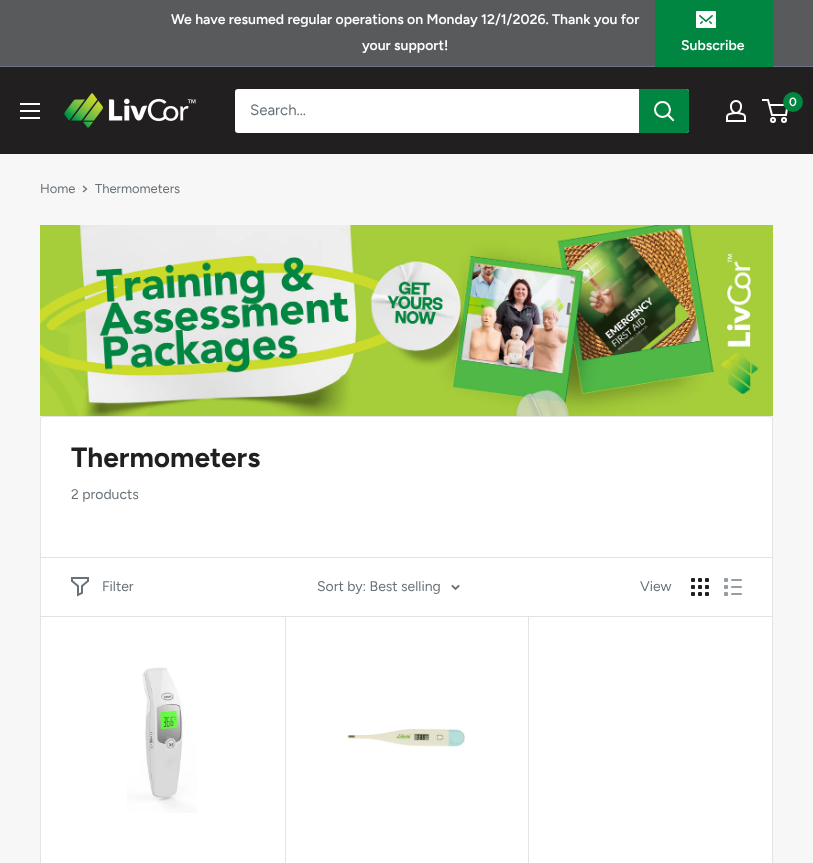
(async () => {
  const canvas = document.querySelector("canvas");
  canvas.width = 813;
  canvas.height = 863;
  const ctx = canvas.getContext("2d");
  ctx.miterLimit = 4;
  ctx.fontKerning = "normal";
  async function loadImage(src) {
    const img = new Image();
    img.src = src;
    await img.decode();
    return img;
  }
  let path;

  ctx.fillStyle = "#f7f7f7";
  ctx.fillRect(0, 0, 813, 863);
  for (const [x, y, w, h, color] of [
    [0, 0, 813, 66, "#585a5c"],
    [0, 66, 813, 1, "#6f7488"],
    [655, 0, 118, 67, "#008641"],
  ]) {
    ctx.fillStyle = color;
    ctx.fillRect(x, y, w, h);
  }
  ctx.drawImage(await loadImage("img/1.png"), 696, 11, 20, 17);
  ctx.fillStyle = "#211f20";
  ctx.fillRect(0, 67, 813, 87);
  ctx.drawImage(await loadImage("img/2.png"), 64, 93, 132, 35);
  ctx.drawImage(await loadImage("img/3.png"), 726, 100, 20, 22);
  ctx.beginPath();
  ctx.arc(773, 120, 2, 0, Math.PI * 2);
  ctx.strokeStyle = "#ffffff";
  ctx.lineWidth = 2;
  ctx.stroke();
  ctx.beginPath();
  ctx.arc(784, 120, 2, 0, Math.PI * 2);
  ctx.stroke();
  path = new Path2D("M769.5 105H787.5L786 115H772L768 100H762");
  ctx.stroke(path);
  ctx.fillStyle = "#008641";
  ctx.beginPath();
  ctx.arc(793, 102, 10, 0, Math.PI * 2);
  ctx.fill();
  ctx.drawImage(await loadImage("img/4.png"), 20, 103, 20, 16);
  ctx.fillStyle = "#ffffff";
  ctx.beginPath();
  ctx.roundRect(235, 89, 454, 44, 3);
  ctx.fill();
  ctx.fillStyle = "#008641";
  ctx.beginPath();
  ctx.roundRect(639, 89, 50, 44, [0, 3, 3, 0]);
  ctx.fill();
  path = new Path2D("M673 120L668 115");
  ctx.lineCap = "square";
  ctx.stroke(path);
  ctx.beginPath();
  ctx.arc(662.5, 109.5, 7.5, 0, Math.PI * 2);
  ctx.stroke();
  path = new Path2D("M83.5 186.5L86.5 189L83.5 191.5");
  ctx.strokeStyle = "#677279";
  ctx.lineWidth = 1.3;
  ctx.stroke(path);
  ctx.drawImage(await loadImage("img/5.png"), 40, 225, 733, 191);
  ctx.fillStyle = "#ffffff";
  ctx.beginPath();
  ctx.roundRect(40.5, 416.5, 732, 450, 2.5);
  ctx.fill();
  ctx.strokeStyle = "#e1e3e4";
  ctx.lineWidth = 1;
  ctx.stroke();
  for (const [x, y, w, h, color] of [
    [41, 557, 731, 1, "#e1e3e4"],
    [285, 616, 1, 247, "#e1e3e4"],
    [528, 616, 1, 247, "#e1e3e4"],
    [41, 616, 731, 1, "#e1e3e4"],
  ]) {
    ctx.fillStyle = color;
    ctx.fillRect(x, y, w, h);
  }
  path = new Path2D("M88 581L82 586V593L78 595V586L72 581V578H88Z");
  ctx.strokeStyle = "#677279";
  ctx.lineWidth = 2;
  ctx.stroke(path);
  path = new Path2D("M458.5 586L455.5 589L452.5 586");
  ctx.lineWidth = 1.9;
  ctx.stroke(path);
  ctx.drawImage(await loadImage("img/6.png"), 691, 578, 18, 18);
  ctx.drawImage(await loadImage("img/7.png"), 724, 578, 18, 18);
  ctx.drawImage(await loadImage("img/8.png"), 127, 667, 70, 146);
  ctx.drawImage(await loadImage("img/9.png"), 347, 727, 118, 20);
  ctx.font = "600 14px Figtree";
  ctx.fillStyle = "#ffffff";
  for (const [text, x, y] of [
    ["We have resumed regular operations on Monday 12/1/2026. Thank you for", 171, 24],
    ["your support!", 362, 50],
    ["Subscribe", 681, 50],
  ]) {
    ctx.fillText(text, x, y);
  }
  ctx.font = "600 12px Figtree";
  ctx.fillText("0", 789, 106);
  ctx.font = "15px Figtree";
  ctx.fillStyle = "#677279";
  ctx.fillText("Search...", 250, 115);
  ctx.font = "13px Figtree";
  ctx.fillText("Home", 40, 193);
  ctx.fillText("Thermometers", 95, 193);
  ctx.font = "bold 28px Figtree";
  ctx.fillStyle = "#211f20";
  ctx.fillText("Thermometers", 71, 467);
  ctx.font = "14px Figtree";
  ctx.fillStyle = "#677279";
  for (const [text, x, y] of [
    ["2 products", 71, 499],
    ["Filter", 102, 591],
    ["Sort by: Best selling", 317, 591],
    ["View", 640, 591],
  ]) {
    ctx.fillText(text, x, y);
  }
})();
